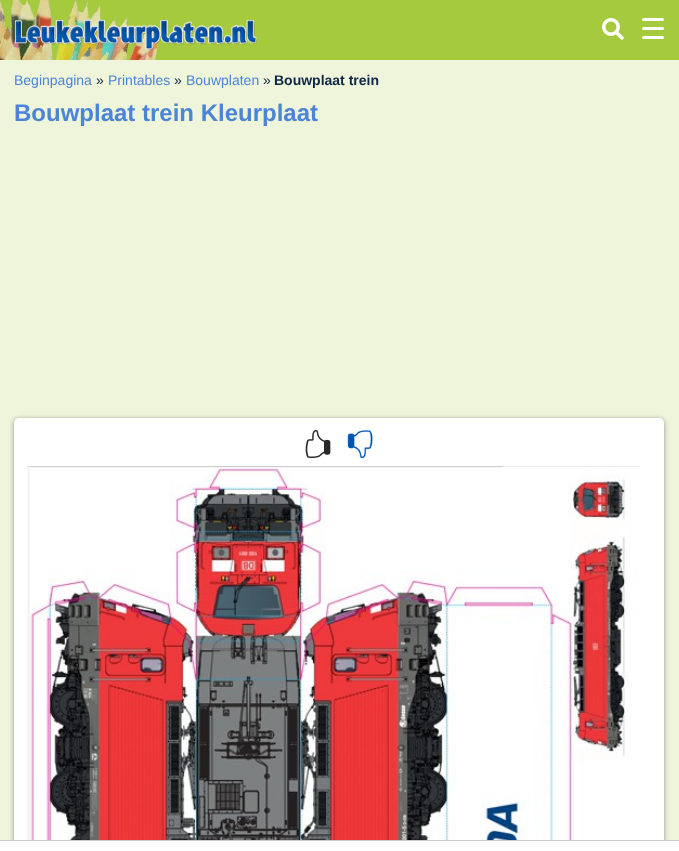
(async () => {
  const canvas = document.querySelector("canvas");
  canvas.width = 679;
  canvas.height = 851;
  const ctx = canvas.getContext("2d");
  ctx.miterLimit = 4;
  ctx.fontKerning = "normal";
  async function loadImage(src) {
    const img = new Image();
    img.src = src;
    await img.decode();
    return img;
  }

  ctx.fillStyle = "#eef5db";
  ctx.fillRect(0, 0, 679, 851);
  ctx.fillStyle = "#a5ca3e";
  ctx.fillRect(0, 0, 679, 60);
  ctx.drawImage(await loadImage("img/1.png"), 0, 0, 159, 60);
  ctx.drawImage(await loadImage("img/2.png"), 15, 20, 242, 30);
  ctx.drawImage(await loadImage("img/3.png"), 602, 18, 22, 22);
  ctx.fillStyle = "#ffffff";
  ctx.beginPath();
  ctx.roundRect(642, 18, 22, 3, 1.5);
  ctx.fill();
  ctx.beginPath();
  ctx.roundRect(642, 27, 22, 3, 1.5);
  ctx.fill();
  ctx.beginPath();
  ctx.roundRect(642, 36, 22, 3, 1.5);
  ctx.fill();
  ctx.fillStyle = "rgba(0, 0, 0, 0.4)";
  ctx.filter = "blur(2.5px)";
  ctx.beginPath();
  ctx.roundRect(14, 419, 650, 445, 5);
  ctx.fill();
  ctx.filter = "none";
  ctx.fillStyle = "#ffffff";
  ctx.beginPath();
  ctx.roundRect(14, 418, 650, 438, 5);
  ctx.fill();
  ctx.drawImage(await loadImage("img/4.png"), 305, 430, 26, 28);
  ctx.drawImage(await loadImage("img/5.png"), 347, 430, 26, 28);
  ctx.drawImage(await loadImage("img/6.png"), 27, 466, 614, 374);
  ctx.fillRect(0, 841, 679, 10);
  ctx.fillStyle = "#cccccc";
  ctx.fillRect(0, 840, 679, 1);
  ctx.font = "14px Liberation Sans";
  ctx.fillStyle = "#4c85d5";
  ctx.fillText("Beginpagina", 14, 85);
  ctx.fillStyle = "#102645";
  ctx.fillText("»", 96, 85);
  ctx.fillStyle = "#4c85d5";
  ctx.fillText("Printables", 108, 85);
  ctx.fillStyle = "#102645";
  ctx.fillText("»", 174, 85);
  ctx.fillStyle = "#4c85d5";
  ctx.fillText("Bouwplaten", 186, 85);
  ctx.fillStyle = "#102645";
  ctx.fillText("»", 263, 85);
  ctx.font = "bold 14px Liberation Sans";
  ctx.fillText("Bouwplaat trein", 274, 85);
  ctx.font = "bold 24px Liberation Sans";
  ctx.fillStyle = "#4c85d5";
  ctx.fillText("Bouwplaat trein Kleurplaat", 14, 121);
})();
